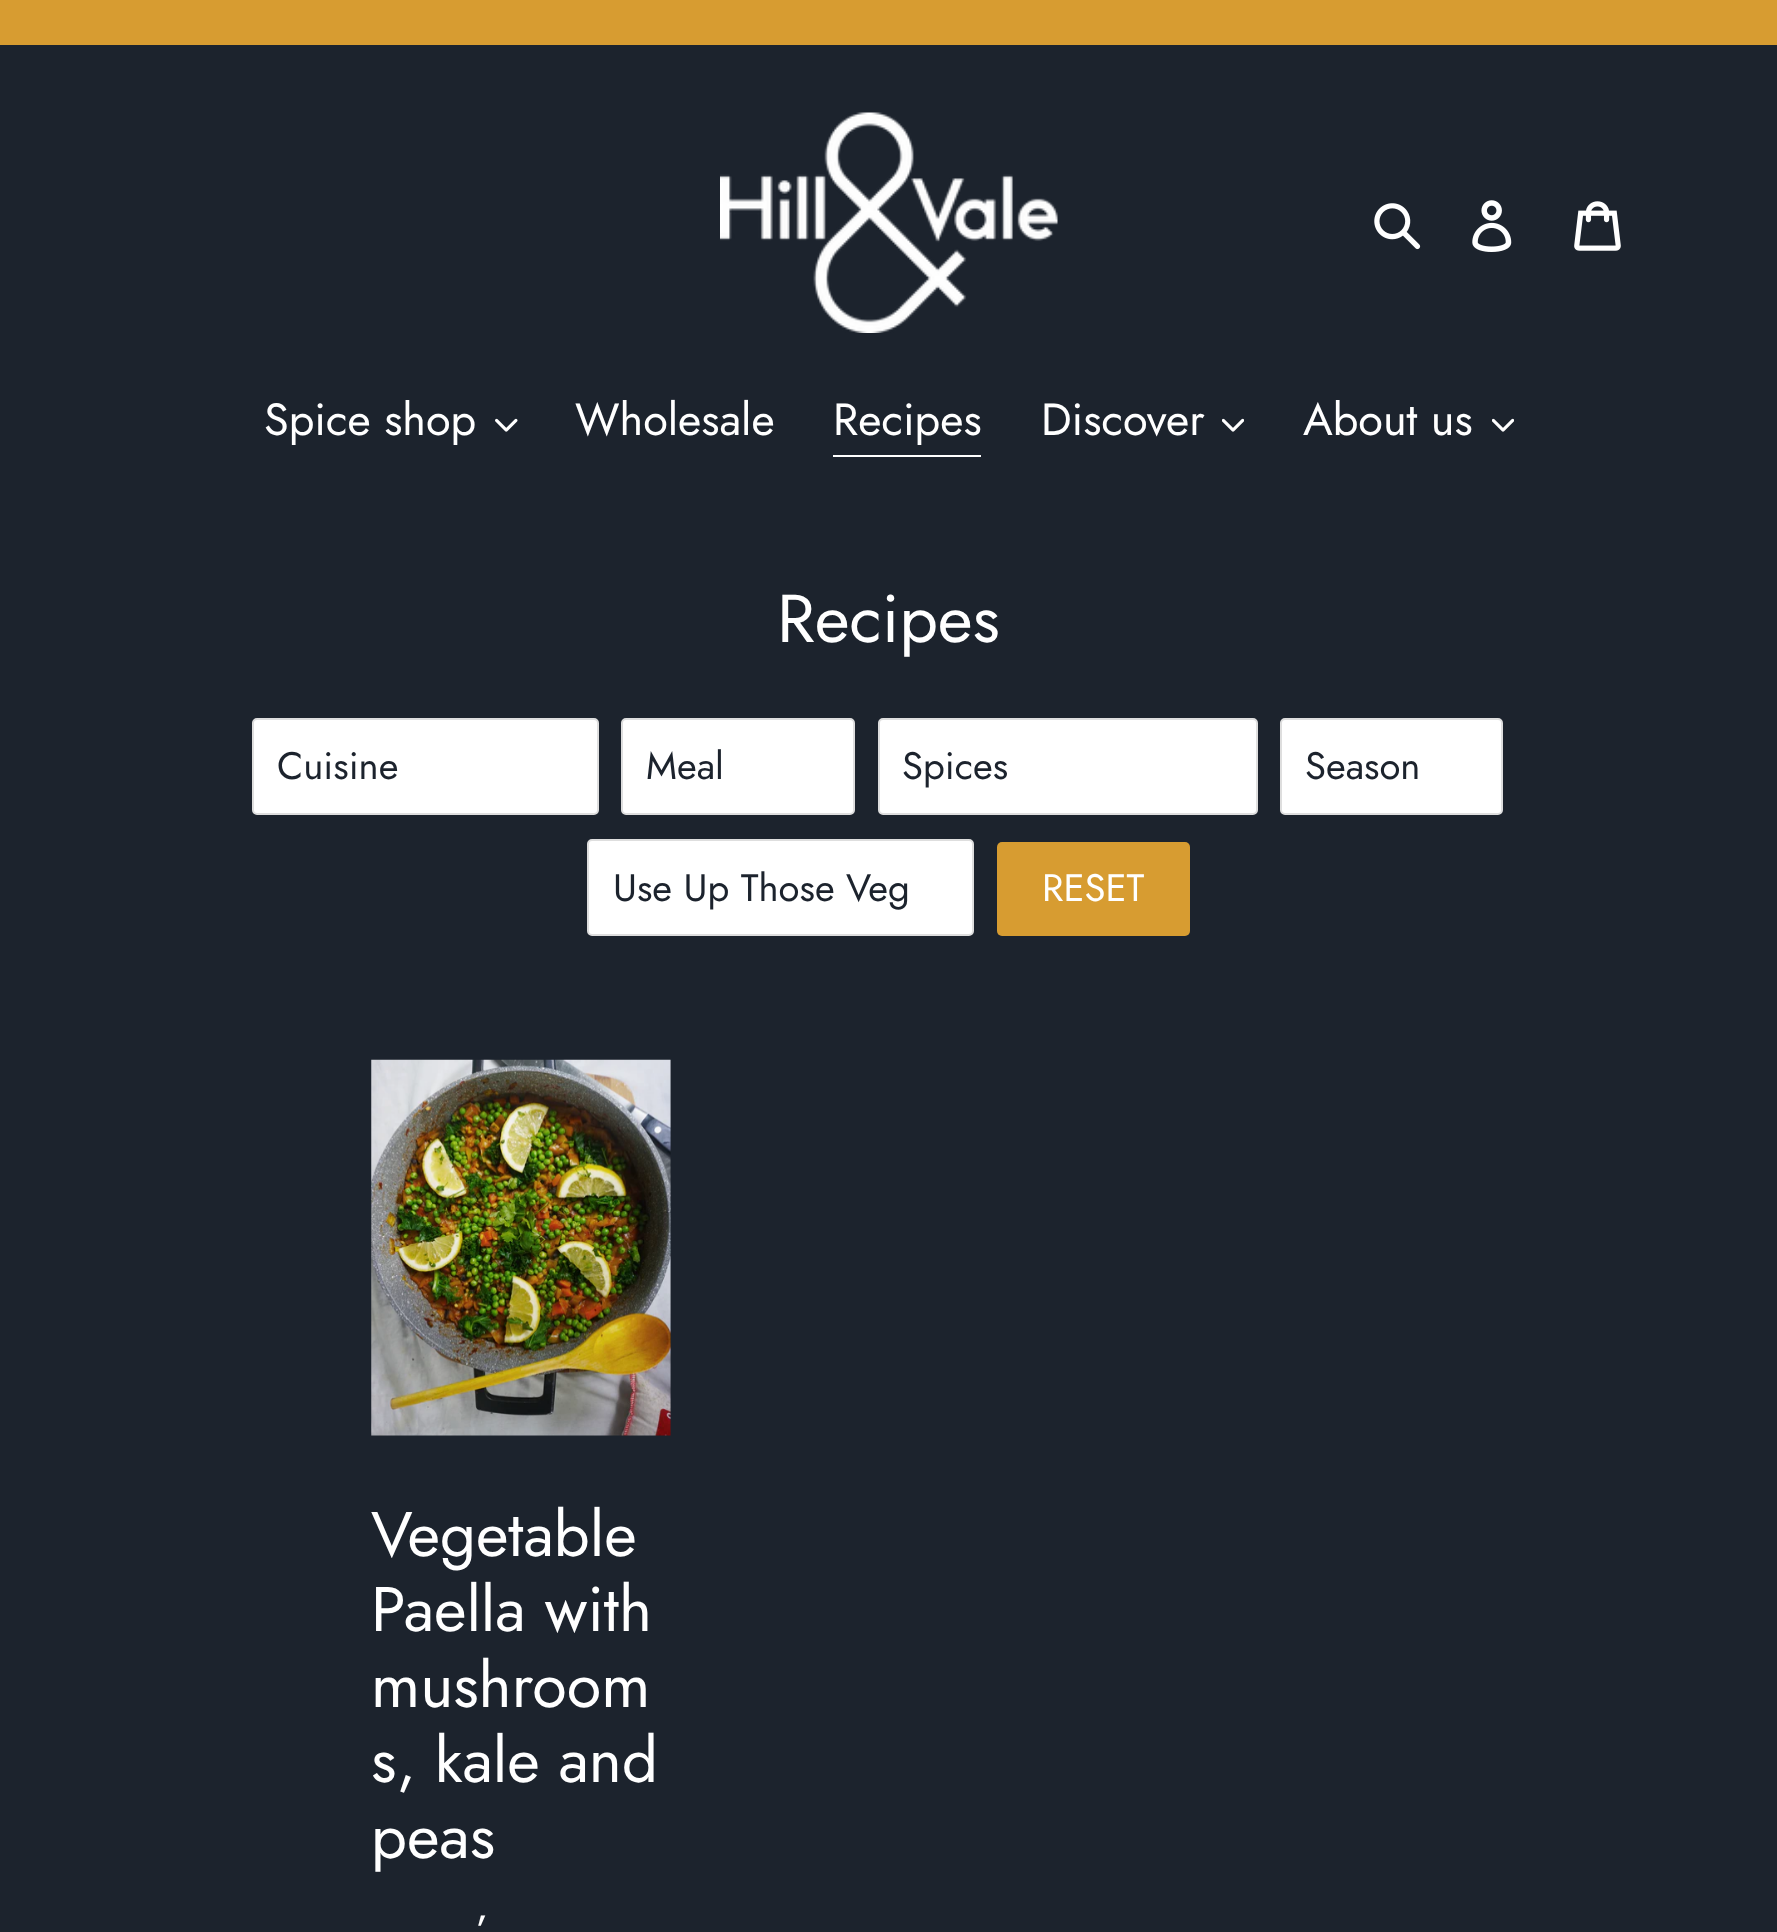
(async () => {
  const canvas = document.querySelector("canvas");
  canvas.width = 1777;
  canvas.height = 1932;
  const ctx = canvas.getContext("2d");
  ctx.miterLimit = 4;
  ctx.fontKerning = "normal";
  async function loadImage(src) {
    const img = new Image();
    img.src = src;
    await img.decode();
    return img;
  }

  ctx.fillStyle = "#1c232d";
  ctx.fillRect(0, 0, 1777, 1932);
  ctx.fillStyle = "#d79c31";
  ctx.fillRect(0, 0, 1777, 45);
  ctx.drawImage(await loadImage("img/1.png"), 720, 112, 338, 221);
  ctx.drawImage(await loadImage("img/2.png"), 1374, 203, 47, 47);
  ctx.drawImage(await loadImage("img/3.png"), 1472, 200, 40, 52);
  ctx.drawImage(await loadImage("img/4.png"), 1574, 201, 47, 50);
  ctx.drawImage(await loadImage("img/5.png"), 495, 418, 23, 14);
  ctx.fillStyle = "#ffffff";
  ctx.fillRect(833, 455, 148, 2);
  ctx.drawImage(await loadImage("img/6.png"), 1222, 418, 22, 14);
  ctx.drawImage(await loadImage("img/6.png"), 1492, 418, 22, 14);
  ctx.beginPath();
  ctx.roundRect(253, 719, 345, 95, 4);
  ctx.fill();
  ctx.strokeStyle = "#dedede";
  ctx.lineWidth = 2;
  ctx.stroke();
  ctx.beginPath();
  ctx.roundRect(622, 719, 232, 95, 4);
  ctx.fill();
  ctx.stroke();
  ctx.beginPath();
  ctx.roundRect(879, 719, 378, 95, 4);
  ctx.fill();
  ctx.stroke();
  ctx.beginPath();
  ctx.roundRect(1281, 719, 221, 95, 4);
  ctx.fill();
  ctx.stroke();
  ctx.beginPath();
  ctx.roundRect(588, 840, 385, 95, 4);
  ctx.fill();
  ctx.stroke();
  ctx.fillStyle = "#d79c31";
  ctx.beginPath();
  ctx.roundRect(997, 842, 193, 94, 5);
  ctx.fill();
  ctx.drawImage(await loadImage("img/7.png"), 371, 1059, 300, 377);
  ctx.font = "45px Jost";
  ctx.fillStyle = "#ffffff";
  for (const [text, x, y] of [
    ["Spice shop", 264, 435],
    ["Wholesale", 575, 435],
    ["Recipes", 833, 435],
    ["Discover", 1041, 435],
    ["About us", 1303, 435],
  ]) {
    ctx.fillText(text, x, y);
  }
  ctx.font = "67.5px Jost";
  ctx.fillText("Recipes", 777, 642);
  ctx.font = "38.25px Jost";
  ctx.fillStyle = "#1c232d";
  for (const [text, x, y] of [
    ["Cuisine", 277, 779],
    ["Meal", 646, 779],
    ["Spices", 902, 779],
    ["Season", 1305, 779],
    ["Use Up Those Veg", 613, 901],
  ]) {
    ctx.fillText(text, x, y);
  }
  ctx.fillStyle = "#ffffff";
  ctx.fillText("RESET", 1042, 901);
  ctx.font = "63px Jost";
  for (const [text, x, y] of [
    ["Vegetable", 371, 1556],
    ["Paella with", 371, 1631],
    ["mushroom", 371, 1707],
    ["s, kale and", 371, 1782],
    ["peas", 371, 1858],
  ]) {
    ctx.fillText(text, x, y);
  }
  ctx.font = "45px Jost";
  ctx.fillText("’", 476, 1947);
})();
